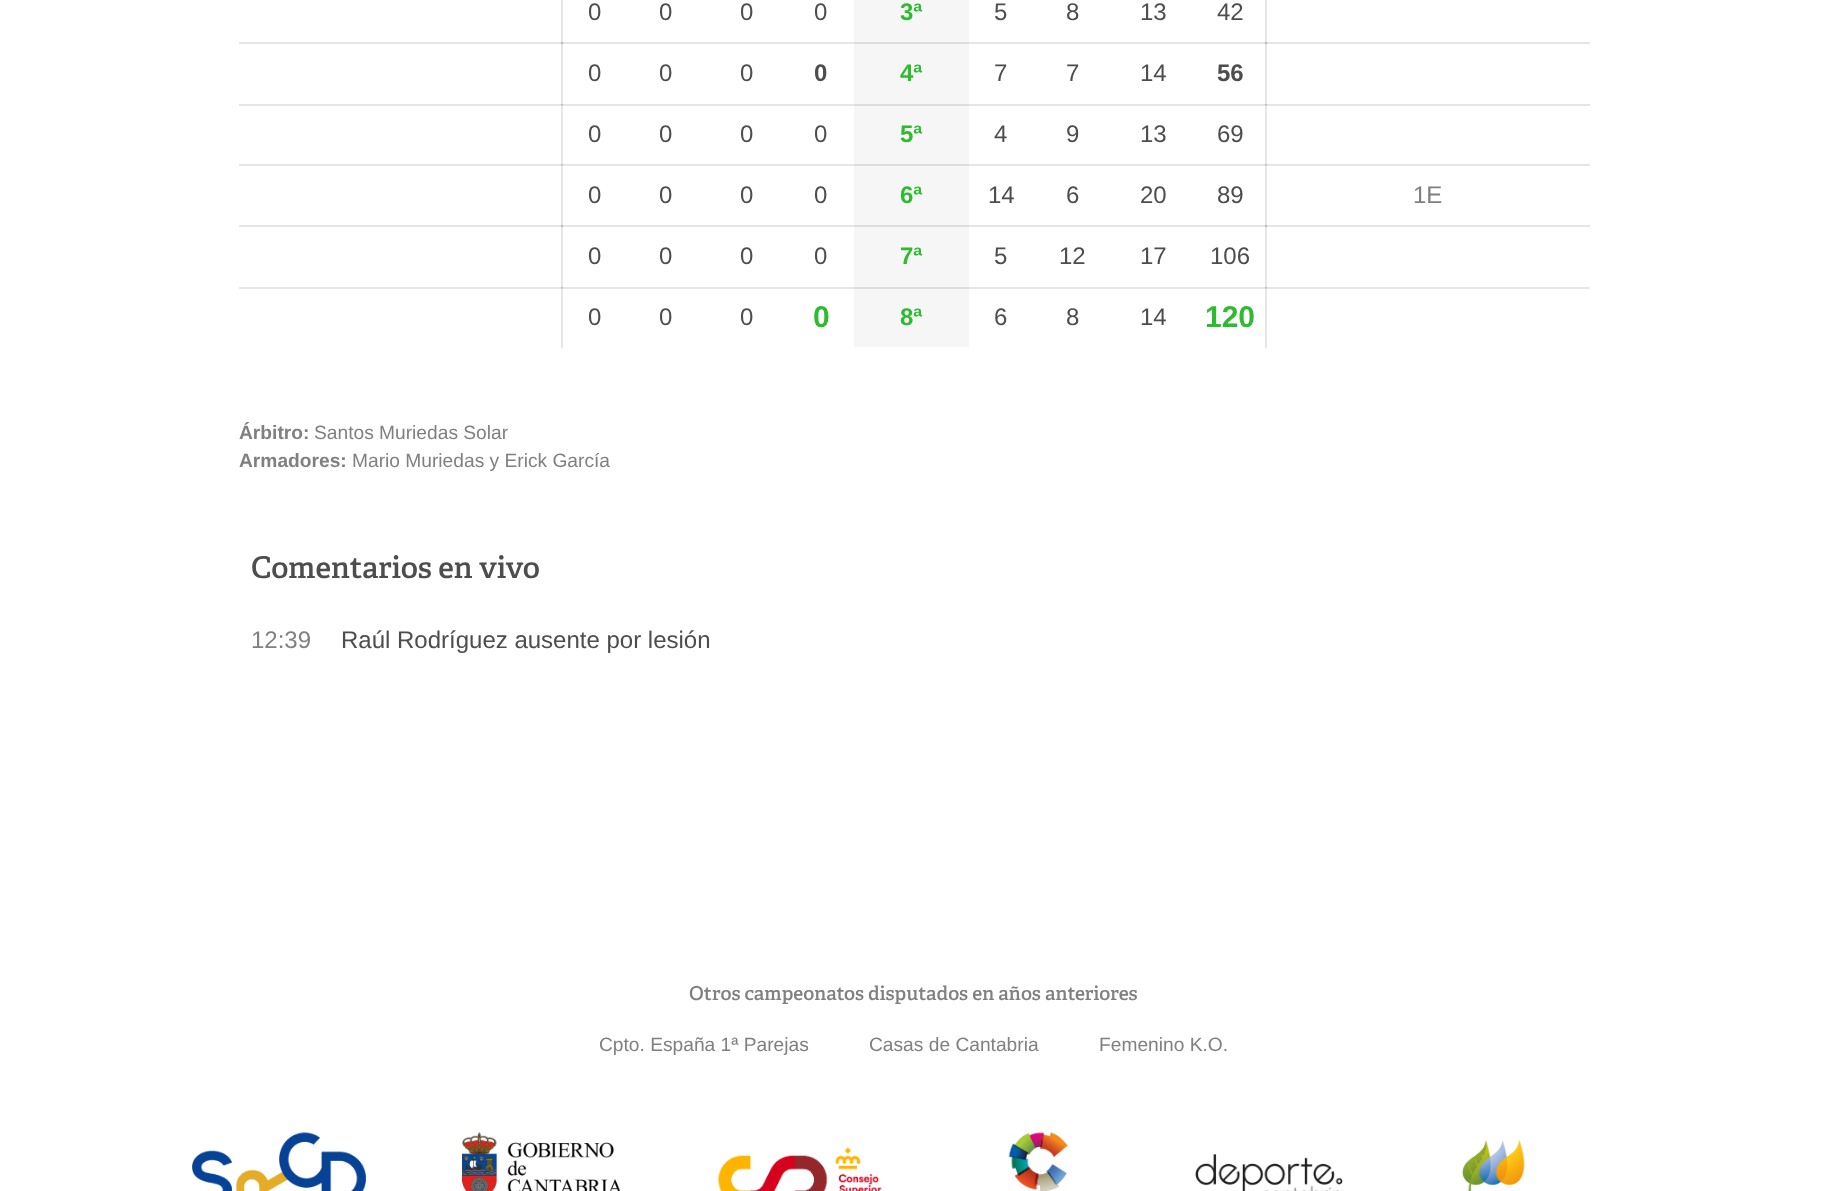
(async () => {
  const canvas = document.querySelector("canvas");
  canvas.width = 1827;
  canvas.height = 1191;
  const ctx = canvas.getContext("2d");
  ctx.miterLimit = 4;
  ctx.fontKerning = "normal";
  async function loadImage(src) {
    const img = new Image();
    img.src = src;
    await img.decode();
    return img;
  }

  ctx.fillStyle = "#ffffff";
  ctx.fillRect(0, 0, 1827, 1191);
  for (const [x, y, w, h, color] of [
    [561, 0, 2, 348, "#e6e6e6"],
    [1265, 0, 2, 348, "#e6e6e6"],
    [239, 42, 1351, 2, "#e6e6e6"],
    [561, 42, 2, 2, "#bababa"],
    [1265, 42, 2, 2, "#bababa"],
    [239, 104, 1351, 2, "#e6e6e6"],
    [561, 105, 2, 1, "#cfcfcf"],
    [561, 104, 2, 1, "#bababa"],
    [1265, 105, 2, 1, "#cfcfcf"],
    [1265, 104, 2, 1, "#bababa"],
    [239, 164, 1351, 2, "#e6e6e6"],
    [561, 165, 2, 1, "#cfcfcf"],
    [561, 164, 2, 1, "#bababa"],
    [1265, 165, 2, 1, "#cfcfcf"],
    [1265, 164, 2, 1, "#bababa"],
    [239, 225, 1351, 2, "#e6e6e6"],
    [561, 225, 2, 2, "#bababa"],
    [1265, 225, 2, 2, "#bababa"],
    [239, 287, 1351, 2, "#e6e6e6"],
    [561, 288, 2, 1, "#cfcfcf"],
    [561, 287, 2, 1, "#bababa"],
    [1265, 288, 2, 1, "#cfcfcf"],
    [1265, 287, 2, 1, "#bababa"],
    [854, 0, 115, 42, "#f6f6f6"],
    [854, 42, 115, 2, "#dddddd"],
    [854, 44, 115, 60, "#f6f6f6"],
    [854, 106, 115, 58, "#f6f6f6"],
    [854, 104, 115, 2, "#dddddd"],
    [854, 164, 115, 2, "#dddddd"],
    [854, 166, 115, 59, "#f6f6f6"],
    [854, 225, 115, 2, "#dddddd"],
    [854, 227, 115, 60, "#f6f6f6"],
    [854, 289, 115, 58, "#f6f6f6"],
    [854, 287, 115, 2, "#dddddd"],
  ]) {
    ctx.fillStyle = color;
    ctx.fillRect(x, y, w, h);
  }
  ctx.drawImage(await loadImage("img/1.png"), 192, 1132, 174, 59);
  ctx.drawImage(await loadImage("img/2.png"), 462, 1132, 158, 59);
  ctx.drawImage(await loadImage("img/3.png"), 718, 1147, 164, 44);
  ctx.drawImage(await loadImage("img/4.png"), 1008, 1132, 60, 59);
  ctx.drawImage(await loadImage("img/5.png"), 1195, 1154, 148, 37);
  ctx.drawImage(await loadImage("img/6.png"), 1462, 1139, 63, 52);
  ctx.font = "24px Liberation Sans";
  ctx.fillStyle = "#4d4d4d";
  for (const [text, x, y] of [
    ["0", 588, 20],
    ["0", 659, 20],
    ["0", 740, 20],
    ["0", 814, 20],
  ]) {
    ctx.fillText(text, x, y);
  }
  ctx.font = "bold 24px Liberation Sans";
  ctx.fillStyle = "#2fbb2f";
  ctx.fillText("3ª", 900, 20);
  ctx.font = "24px Liberation Sans";
  ctx.fillStyle = "#4d4d4d";
  for (const [text, x, y] of [
    ["5", 994, 20],
    ["8", 1066, 20],
    ["13", 1140, 20],
    ["42", 1217, 20],
    ["0", 588, 81],
    ["0", 659, 81],
    ["0", 740, 81],
  ]) {
    ctx.fillText(text, x, y);
  }
  ctx.font = "bold 24px Liberation Sans";
  ctx.fillText("0", 814, 81);
  ctx.fillStyle = "#2fbb2f";
  ctx.fillText("4ª", 900, 81);
  ctx.font = "24px Liberation Sans";
  ctx.fillStyle = "#4d4d4d";
  for (const [text, x, y] of [
    ["7", 994, 81],
    ["7", 1066, 81],
    ["14", 1140, 81],
  ]) {
    ctx.fillText(text, x, y);
  }
  ctx.font = "bold 24px Liberation Sans";
  ctx.fillText("56", 1217, 81);
  ctx.font = "24px Liberation Sans";
  for (const [text, x, y] of [
    ["0", 588, 142],
    ["0", 659, 142],
    ["0", 740, 142],
    ["0", 814, 142],
  ]) {
    ctx.fillText(text, x, y);
  }
  ctx.font = "bold 24px Liberation Sans";
  ctx.fillStyle = "#2fbb2f";
  ctx.fillText("5ª", 900, 142);
  ctx.font = "24px Liberation Sans";
  ctx.fillStyle = "#4d4d4d";
  for (const [text, x, y] of [
    ["4", 994, 142],
    ["9", 1066, 142],
    ["13", 1140, 142],
    ["69", 1217, 142],
    ["0", 588, 203],
    ["0", 659, 203],
    ["0", 740, 203],
    ["0", 814, 203],
  ]) {
    ctx.fillText(text, x, y);
  }
  ctx.font = "bold 24px Liberation Sans";
  ctx.fillStyle = "#2fbb2f";
  ctx.fillText("6ª", 900, 203);
  ctx.font = "24px Liberation Sans";
  ctx.fillStyle = "#4d4d4d";
  for (const [text, x, y] of [
    ["14", 988, 203],
    ["6", 1066, 203],
    ["20", 1140, 203],
    ["89", 1217, 203],
  ]) {
    ctx.fillText(text, x, y);
  }
  ctx.fillStyle = "#808080";
  ctx.fillText("1E", 1413, 203);
  ctx.fillStyle = "#4d4d4d";
  for (const [text, x, y] of [
    ["0", 588, 264],
    ["0", 659, 264],
    ["0", 740, 264],
    ["0", 814, 264],
  ]) {
    ctx.fillText(text, x, y);
  }
  ctx.font = "bold 24px Liberation Sans";
  ctx.fillStyle = "#2fbb2f";
  ctx.fillText("7ª", 900, 264);
  ctx.font = "24px Liberation Sans";
  ctx.fillStyle = "#4d4d4d";
  for (const [text, x, y] of [
    ["5", 994, 264],
    ["12", 1059, 264],
    ["17", 1140, 264],
    ["106", 1210, 264],
    ["0", 588, 325],
    ["0", 659, 325],
    ["0", 740, 325],
  ]) {
    ctx.fillText(text, x, y);
  }
  ctx.font = "bold 30px Liberation Sans";
  ctx.fillStyle = "#2fbb2f";
  ctx.fillText("0", 813, 327);
  ctx.font = "bold 24px Liberation Sans";
  ctx.fillText("8ª", 900, 325);
  ctx.font = "24px Liberation Sans";
  ctx.fillStyle = "#4d4d4d";
  for (const [text, x, y] of [
    ["6", 994, 325],
    ["8", 1066, 325],
    ["14", 1140, 325],
  ]) {
    ctx.fillText(text, x, y);
  }
  ctx.font = "bold 30px Liberation Sans";
  ctx.fillStyle = "#2fbb2f";
  ctx.fillText("120", 1205, 327);
  ctx.font = "bold 19.2px Liberation Sans";
  ctx.fillStyle = "#808080";
  ctx.fillText("Árbitro:", 239, 439);
  ctx.font = "19.2px Liberation Sans";
  ctx.fillText("Santos Muriedas Solar", 314, 439);
  ctx.font = "bold 19.2px Liberation Sans";
  ctx.fillText("Armadores:", 239, 467);
  ctx.font = "19.2px Liberation Sans";
  ctx.fillText("Mario Muriedas y Erick García", 352, 467);
  ctx.font = "600 30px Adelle";
  ctx.fillStyle = "#4d4d4d";
  ctx.fillText("Comentarios en vivo", 251, 578);
  ctx.font = "24px Liberation Sans";
  ctx.fillStyle = "#808080";
  ctx.fillText("12:39", 251, 648);
  ctx.fillStyle = "#4d4d4d";
  ctx.fillText("Raúl Rodríguez ausente por lesión", 341, 648);
  ctx.font = "600 19.2px Adelle";
  ctx.fillStyle = "#808080";
  ctx.fillText("Otros campeonatos disputados en años anteriores", 689, 1000);
  ctx.font = "19.2px Liberation Sans";
  for (const [text, x, y] of [
    ["Cpto. España 1ª Parejas", 599, 1051],
    ["Casas de Cantabria", 869, 1051],
    ["Femenino K.O.", 1099, 1051],
  ]) {
    ctx.fillText(text, x, y);
  }
})();
